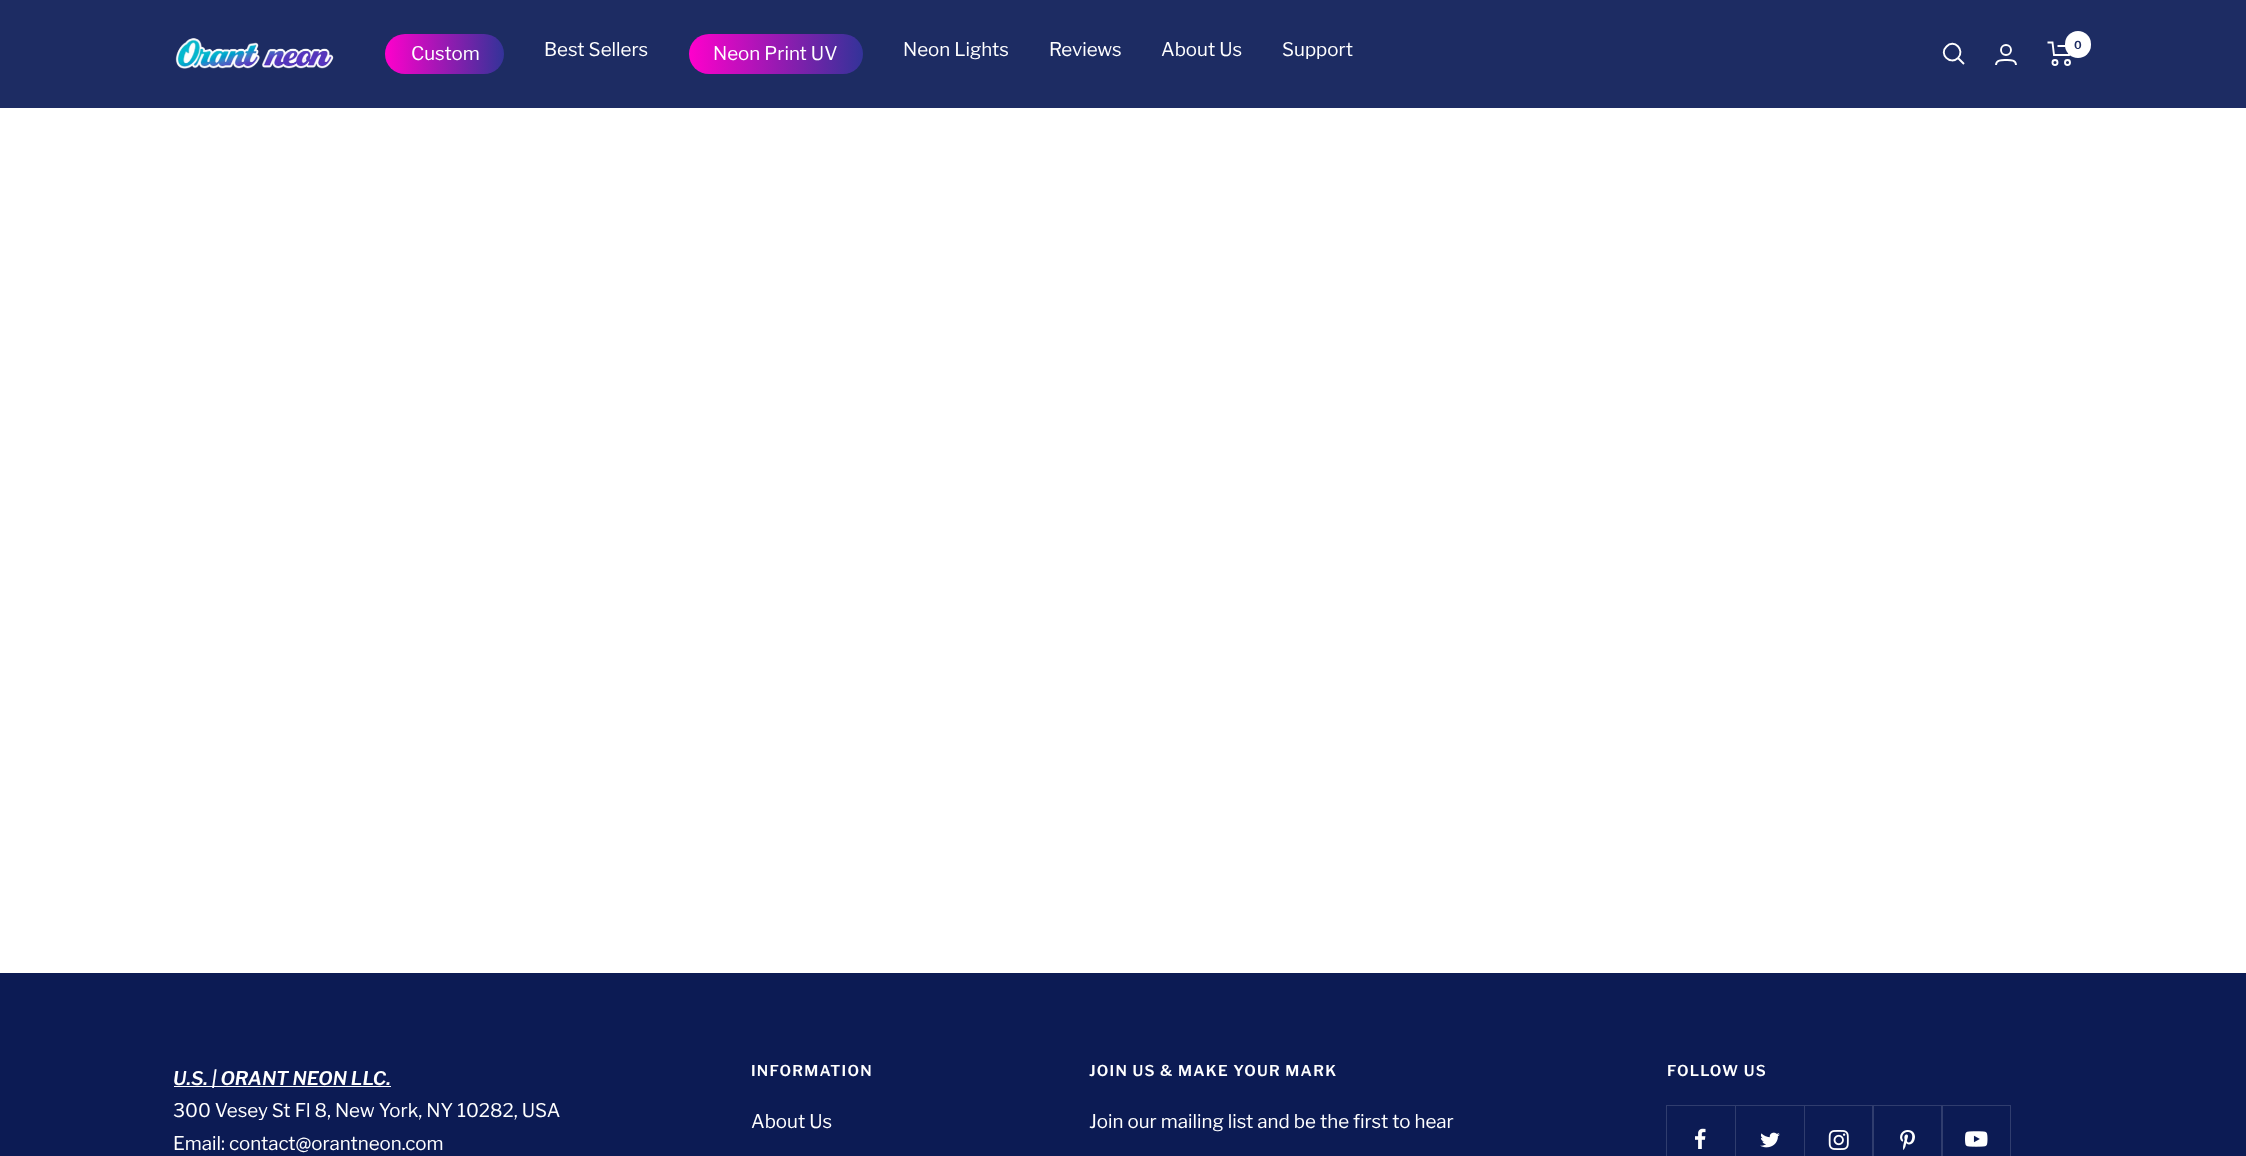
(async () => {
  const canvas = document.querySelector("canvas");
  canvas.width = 2246;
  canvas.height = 1156;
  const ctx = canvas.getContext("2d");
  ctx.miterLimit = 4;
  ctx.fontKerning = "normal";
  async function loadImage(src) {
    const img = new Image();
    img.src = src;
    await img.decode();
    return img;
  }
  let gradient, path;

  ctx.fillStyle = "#ffffff";
  ctx.fillRect(0, 0, 2246, 1156);
  ctx.fillStyle = "#1d2c63";
  ctx.fillRect(0, 0, 2246, 108);
  ctx.drawImage(await loadImage("img/1.png"), 175, 38, 159, 31);
  gradient = ctx.createLinearGradient(385, 54, 504, 54);
  gradient.addColorStop(0, "#ff00cc");
  gradient.addColorStop(1, "#333399");
  ctx.fillStyle = gradient;
  ctx.beginPath();
  ctx.roundRect(385, 34, 119, 40, 20);
  ctx.fill();
  gradient = ctx.createLinearGradient(689, 54, 863, 54);
  gradient.addColorStop(0, "#ff00cc");
  gradient.addColorStop(1, "#333399");
  ctx.fillStyle = gradient;
  ctx.beginPath();
  ctx.roundRect(689, 34, 174, 40, 20);
  ctx.fill();
  path = new Path2D("M1958 58C1965.5 50 1954 38.5 1946.5 46.5C1938.5 54 1950 65.5 1958 58ZM1958 58L1964 64");
  ctx.strokeStyle = "#ffffff";
  ctx.lineWidth = 1.9;
  ctx.stroke(path);
  ctx.beginPath();
  ctx.arc(2006, 50, 5, 0, Math.PI * 2);
  ctx.stroke();
  path = new Path2D("M1996 65C1996 59.5 2002.5 60 2006 60C2010 60 2016 59.5 2016 65");
  ctx.stroke(path);
  path = new Path2D("M2047.5 42.5H2052.5L2054 55H2069L2071 46H2057.5");
  ctx.stroke(path);
  ctx.beginPath();
  ctx.arc(2055, 62.5, 2.5, 0, Math.PI * 2);
  ctx.stroke();
  ctx.beginPath();
  ctx.arc(2067.5, 62.5, 2.5, 0, Math.PI * 2);
  ctx.stroke();
  ctx.fillStyle = "#ffffff";
  ctx.beginPath();
  ctx.roundRect(2065, 31, 26, 27, 13);
  ctx.fill();
  ctx.fillStyle = "#0c1b54";
  ctx.fillRect(0, 973, 2246, 183);
  ctx.fillStyle = "#ffffff";
  ctx.fillRect(174, 1086, 217, 1);
  ctx.fillStyle = "#303d6e";
  path = new Path2D("M1668 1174H1736V1105H1735V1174Z");
  ctx.fill(path);
  ctx.fillRect(1666, 1105, 138, 1);
  ctx.fillRect(1666, 1105, 1, 51);
  ctx.drawImage(await loadImage("img/2.png"), 1695, 1128, 11, 21);
  path = new Path2D("M1736 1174H1805V1105H1804V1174Z");
  ctx.fill(path);
  ctx.drawImage(await loadImage("img/3.png"), 1760, 1132, 20, 16);
  path = new Path2D("M1805 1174H1874V1105H1872V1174Z");
  ctx.fill(path);
  ctx.fillRect(1804, 1105, 137, 1);
  ctx.drawImage(await loadImage("img/4.png"), 1828, 1130, 21, 20);
  path = new Path2D("M1874 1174H1943V1105H1941V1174Z");
  ctx.fill(path);
  ctx.drawImage(await loadImage("img/5.png"), 1900, 1130, 15, 20);
  path = new Path2D("M1943 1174H2011V1105H2010V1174Z");
  ctx.fill(path);
  ctx.fillRect(1941, 1105, 69, 1);
  ctx.drawImage(await loadImage("img/6.png"), 1965, 1131, 23, 16);
  ctx.font = "18.75px Libre Franklin";
  ctx.fillStyle = "#ffffff";
  for (const [text, x, y] of [
    ["Custom", 411, 60],
    ["Best Sellers", 544, 56],
    ["Neon Print UV", 713, 60],
    ["Neon Lights", 903, 56],
    ["Reviews", 1049, 56],
    ["About Us", 1161, 56],
    ["Support", 1282, 56],
  ]) {
    ctx.fillText(text, x, y);
  }
  ctx.font = "600 11px Libre Franklin";
  ctx.fillStyle = "#1d2c63";
  ctx.fillText("0", 2074, 49);
  ctx.font = "italic 600 18.75px Libre Franklin";
  ctx.fillStyle = "#ffffff";
  ctx.fillText("U.S. | ORANT NEON LLC.", 173, 1085);
  ctx.font = "18.75px Libre Franklin";
  ctx.fillText("300 Vesey St Fl 8, New York, NY 10282, USA", 173, 1117);
  ctx.fillText("Email: contact@orantneon.com", 173, 1150);
  ctx.letterSpacing = "1.25px";
  ctx.font = "600 15px Libre Franklin";
  ctx.fillText("INFORMATION", 751, 1076);
  ctx.letterSpacing = "0px";
  ctx.font = "18.75px Libre Franklin";
  ctx.fillText("About Us", 751, 1128);
  ctx.letterSpacing = "1.25px";
  ctx.font = "600 15px Libre Franklin";
  ctx.fillText("JOIN US & MAKE YOUR MARK", 1089, 1076);
  ctx.letterSpacing = "0px";
  ctx.font = "18.75px Libre Franklin";
  ctx.fillText("Join our mailing list and be the first to hear", 1089, 1128);
  ctx.letterSpacing = "1.25px";
  ctx.font = "600 15px Libre Franklin";
  ctx.fillText("FOLLOW US", 1667, 1076);
})();
